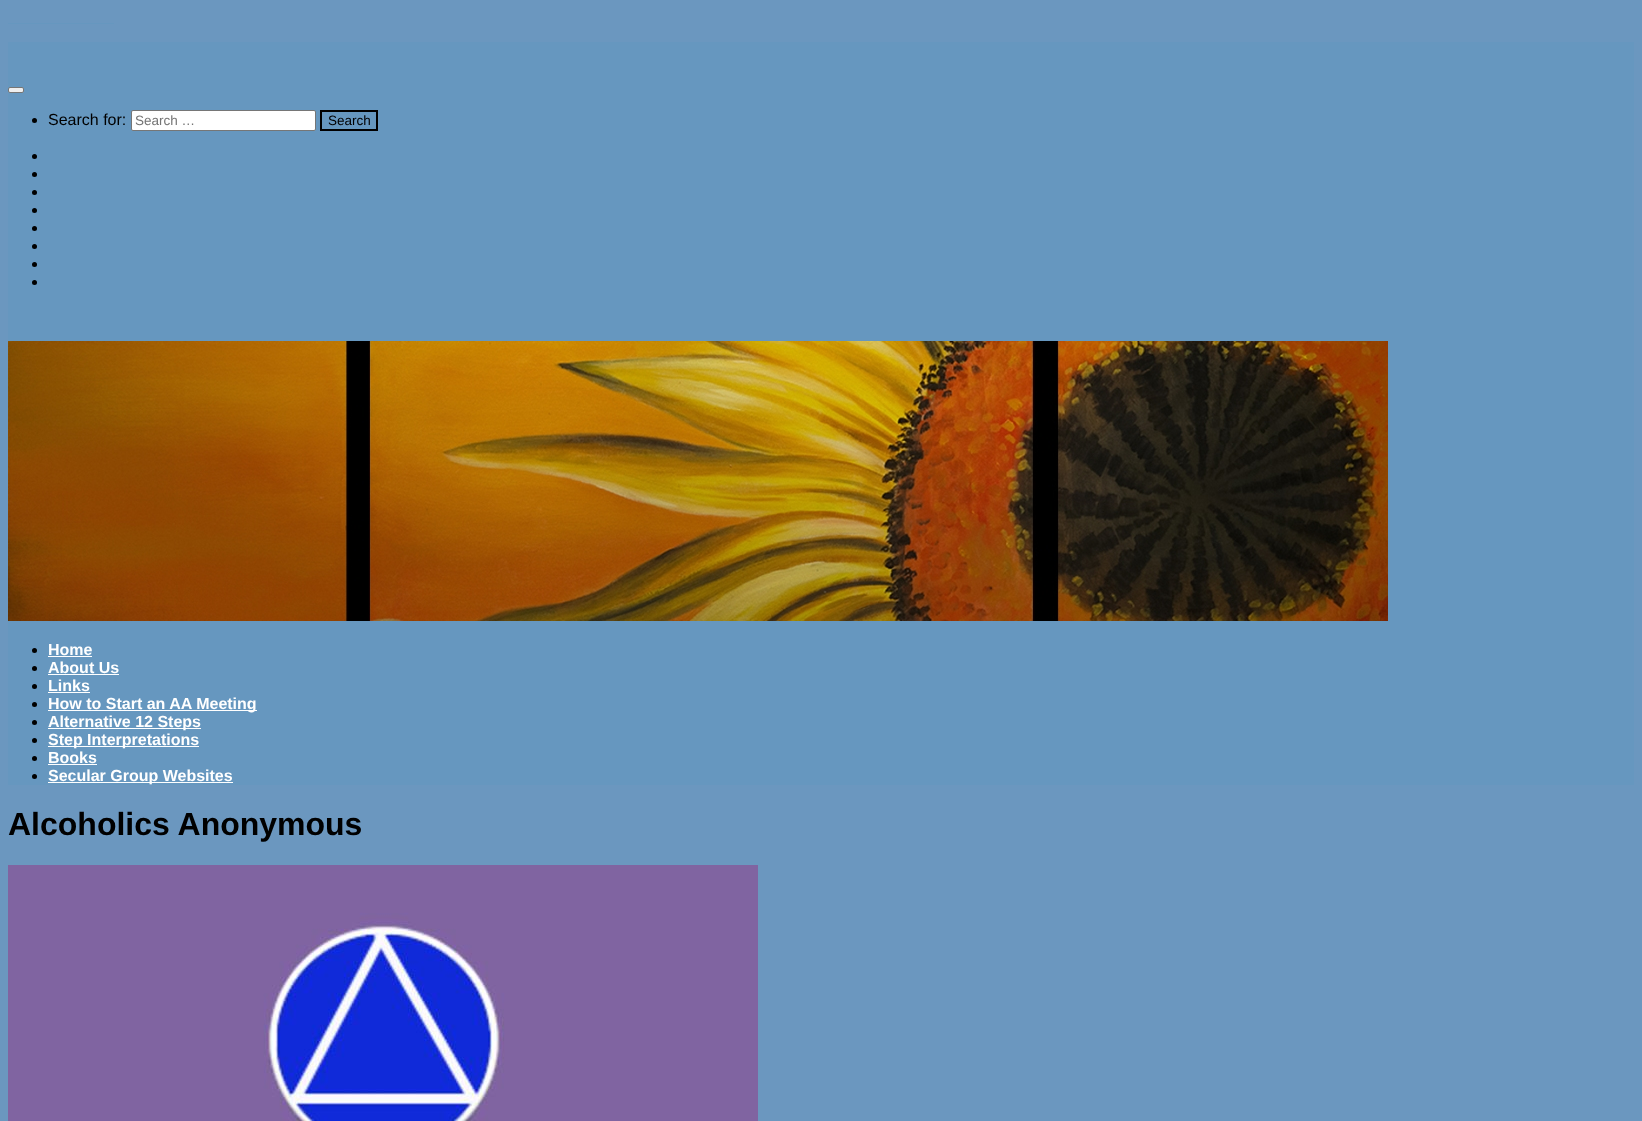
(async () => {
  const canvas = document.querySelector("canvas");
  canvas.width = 1642;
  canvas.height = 1121;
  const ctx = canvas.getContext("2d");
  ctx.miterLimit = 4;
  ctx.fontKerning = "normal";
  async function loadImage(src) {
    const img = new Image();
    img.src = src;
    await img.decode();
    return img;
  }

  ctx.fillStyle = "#6b97bf";
  ctx.fillRect(0, 0, 1642, 1121);
  ctx.fillStyle = "#6697bf";
  ctx.fillRect(8, 23, 106, 1);
  ctx.fillRect(8, 42, 1626, 743);
  ctx.fillStyle = "#efefef";
  ctx.beginPath();
  ctx.roundRect(8.5, 87.5, 15, 5, 1.5);
  ctx.fill();
  ctx.strokeStyle = "#767676";
  ctx.stroke();
  ctx.fillStyle = "#000000";
  ctx.beginPath();
  ctx.arc(34.5, 120.5, 2.5, 0, Math.PI * 2);
  ctx.fill();
  ctx.fillStyle = "#ffffff";
  ctx.beginPath();
  ctx.roundRect(131.5, 110.5, 184, 20, 1.5);
  ctx.fill();
  ctx.stroke();
  ctx.strokeStyle = "#000000";
  ctx.lineWidth = 2;
  ctx.strokeRect(321, 111, 56, 19);
  ctx.fillStyle = "#000000";
  ctx.beginPath();
  ctx.arc(34.5, 156.5, 2.5, 0, Math.PI * 2);
  ctx.fill();
  ctx.beginPath();
  ctx.arc(34.5, 174.5, 2.5, 0, Math.PI * 2);
  ctx.fill();
  ctx.beginPath();
  ctx.arc(34.5, 192.5, 2.5, 0, Math.PI * 2);
  ctx.fill();
  ctx.beginPath();
  ctx.arc(34.5, 210.5, 2.5, 0, Math.PI * 2);
  ctx.fill();
  ctx.beginPath();
  ctx.arc(34.5, 228.5, 2.5, 0, Math.PI * 2);
  ctx.fill();
  ctx.beginPath();
  ctx.arc(34.5, 246.5, 2.5, 0, Math.PI * 2);
  ctx.fill();
  ctx.beginPath();
  ctx.arc(34.5, 264.5, 2.5, 0, Math.PI * 2);
  ctx.fill();
  ctx.beginPath();
  ctx.arc(34.5, 282.5, 2.5, 0, Math.PI * 2);
  ctx.fill();
  ctx.drawImage(await loadImage("img/1.png"), 8, 341, 1380, 280);
  ctx.beginPath();
  ctx.arc(34.5, 650.5, 2.5, 0, Math.PI * 2);
  ctx.fill();
  ctx.fillStyle = "#ffffff";
  ctx.fillRect(48, 656, 44, 1);
  ctx.fillStyle = "#000000";
  ctx.beginPath();
  ctx.arc(34.5, 668.5, 2.5, 0, Math.PI * 2);
  ctx.fill();
  ctx.fillStyle = "#ffffff";
  ctx.fillRect(48, 674, 71, 1);
  ctx.fillStyle = "#000000";
  ctx.beginPath();
  ctx.arc(34.5, 686.5, 2.5, 0, Math.PI * 2);
  ctx.fill();
  ctx.fillStyle = "#ffffff";
  ctx.fillRect(48, 692, 42, 1);
  ctx.fillStyle = "#000000";
  ctx.beginPath();
  ctx.arc(34.5, 704.5, 2.5, 0, Math.PI * 2);
  ctx.fill();
  ctx.fillStyle = "#ffffff";
  ctx.fillRect(48, 710, 209, 1);
  ctx.fillStyle = "#000000";
  ctx.beginPath();
  ctx.arc(34.5, 722.5, 2.5, 0, Math.PI * 2);
  ctx.fill();
  ctx.fillStyle = "#ffffff";
  ctx.fillRect(48, 728, 153, 1);
  ctx.fillStyle = "#000000";
  ctx.beginPath();
  ctx.arc(34.5, 740.5, 2.5, 0, Math.PI * 2);
  ctx.fill();
  ctx.fillStyle = "#ffffff";
  ctx.fillRect(48, 746, 151, 1);
  ctx.fillStyle = "#000000";
  ctx.beginPath();
  ctx.arc(34.5, 758.5, 2.5, 0, Math.PI * 2);
  ctx.fill();
  ctx.fillStyle = "#ffffff";
  ctx.fillRect(48, 764, 49, 1);
  ctx.fillStyle = "#000000";
  ctx.beginPath();
  ctx.arc(34.5, 776.5, 2.5, 0, Math.PI * 2);
  ctx.fill();
  ctx.fillStyle = "#ffffff";
  ctx.fillRect(48, 782, 185, 1);
  ctx.drawImage(await loadImage("img/2.png"), 8, 865, 750, 256);
  ctx.font = "16px Liberation Sans";
  ctx.fillStyle = "#000000";
  ctx.fillText("Search for:", 48, 125);
  ctx.font = "13.5px Liberation Sans";
  ctx.fillStyle = "#757575";
  ctx.fillText("Search …", 135, 125);
  ctx.fillStyle = "#000000";
  ctx.fillText("Search", 328, 125);
  ctx.font = "bold 16px Liberation Sans";
  ctx.fillStyle = "#ffffff";
  for (const [text, x, y] of [
    ["Home", 48, 655],
    ["About Us", 48, 673],
    ["Links", 48, 691],
    ["How to Start an AA Meeting", 48, 709],
    ["Alternative 12 Steps", 48, 727],
    ["Step Interpretations", 48, 745],
    ["Books", 48, 763],
    ["Secular Group Websites", 48, 781],
  ]) {
    ctx.fillText(text, x, y);
  }
  ctx.font = "bold 32px Liberation Sans";
  ctx.fillStyle = "#000000";
  ctx.fillText("Alcoholics Anonymous", 8, 835);
})();
